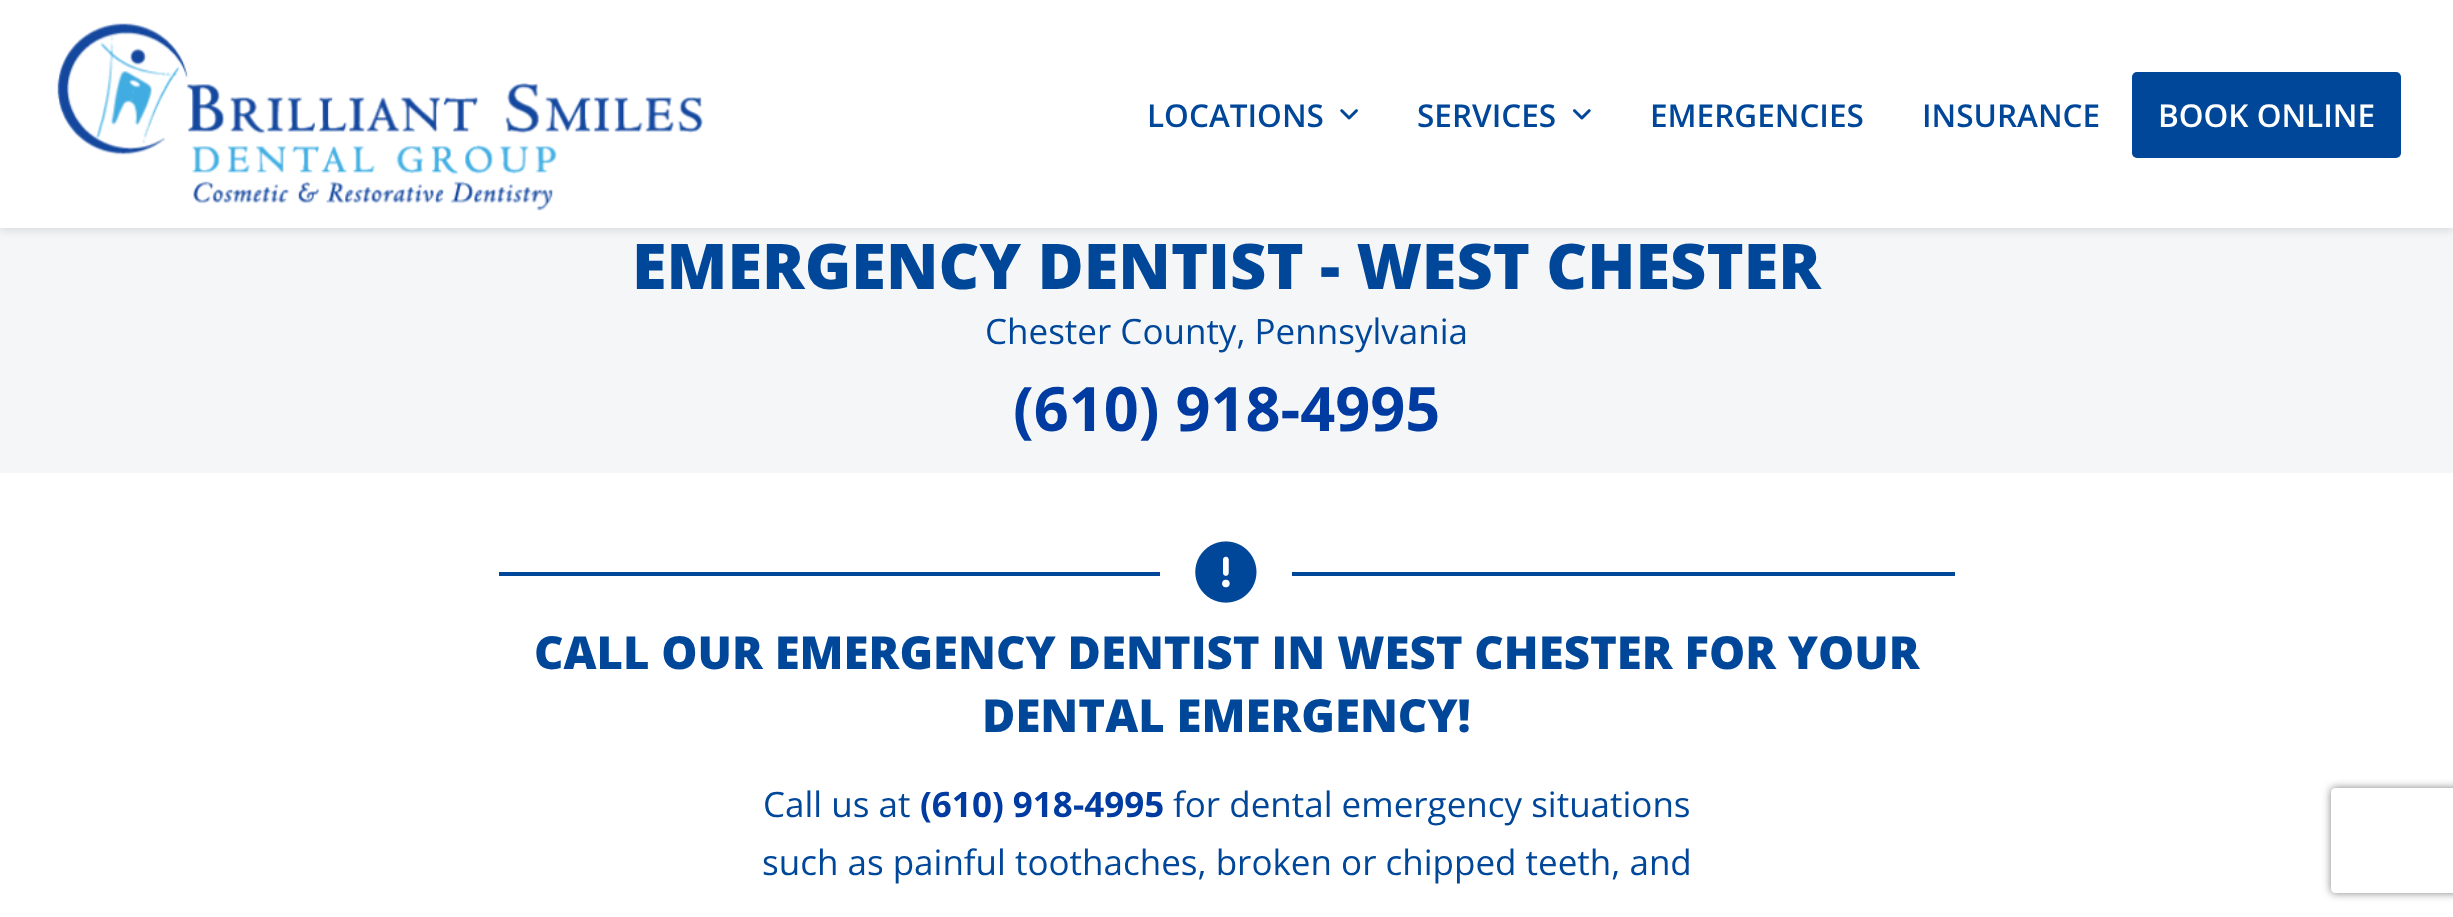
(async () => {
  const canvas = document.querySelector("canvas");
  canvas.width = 2453;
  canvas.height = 917;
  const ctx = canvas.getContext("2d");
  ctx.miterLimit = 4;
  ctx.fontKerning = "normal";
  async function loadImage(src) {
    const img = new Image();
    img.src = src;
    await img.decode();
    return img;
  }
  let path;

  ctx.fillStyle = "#ffffff";
  ctx.fillRect(0, 0, 2453, 917);
  ctx.fillStyle = "#f4f6f7";
  ctx.fillRect(0, 228, 2453, 245);
  ctx.fillStyle = "rgba(0, 0, 0, 0.1)";
  ctx.filter = "blur(4.5px)";
  ctx.beginPath();
  ctx.rect(0, 4, 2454, 227);
  ctx.fill();
  ctx.filter = "none";
  ctx.fillStyle = "#ffffff";
  ctx.fillRect(0, 0, 2453, 228);
  ctx.drawImage(await loadImage("img/1.png"), 57, 23, 646, 188);
  ctx.drawImage(await loadImage("img/2.png"), 1340, 109, 18, 11);
  ctx.drawImage(await loadImage("img/3.png"), 1573, 109, 18, 11);
  ctx.fillStyle = "#004799";
  ctx.beginPath();
  ctx.roundRect(2132, 72, 269, 86, 5);
  ctx.fill();
  ctx.fillRect(499, 572, 661, 4);
  ctx.drawImage(await loadImage("img/4.png"), 1195, 541, 62, 62);
  ctx.fillRect(1292, 572, 663, 4);
  ctx.save();
  path = new Path2D("M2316 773H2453V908H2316ZM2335 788H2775C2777 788 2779 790 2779 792V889C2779 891 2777 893 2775 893H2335C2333 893 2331 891 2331 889V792C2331 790 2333 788 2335 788Z");
  ctx.clip(path, "evenodd");
  ctx.fillStyle = "#808080";
  ctx.filter = "blur(4.5px)";
  ctx.beginPath();
  ctx.roundRect(2331, 788, 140, 105, 4);
  ctx.fill();
  ctx.filter = "none";
  ctx.restore();
  ctx.font = "600 31.5px Open Sans";
  for (const [text, x, y] of [
    ["LOCATIONS", 1147, 127],
    ["SERVICES", 1417, 127],
    ["EMERGENCIES", 1650, 127],
    ["INSURANCE", 1922, 127],
  ]) {
    ctx.fillText(text, x, y);
  }
  ctx.fillStyle = "#ffffff";
  ctx.fillText("BOOK ONLINE", 2158, 127);
  ctx.font = "800 63px Open Sans";
  ctx.fillStyle = "#004799";
  ctx.fillText("EMERGENCY DENTIST - WEST CHESTER", 632, 289);
  ctx.font = "35px Open Sans";
  ctx.fillText("Chester County, Pennsylvania", 985, 344);
  ctx.font = "bold 61.25px Open Sans";
  ctx.fillStyle = "#003ba1";
  ctx.fillText("(610) 918-4995", 1013, 431);
  ctx.font = "800 45.5px Open Sans";
  ctx.fillStyle = "#004799";
  ctx.fillText("CALL OUR EMERGENCY DENTIST IN WEST CHESTER FOR YOUR", 534, 669);
  ctx.fillText("DENTAL EMERGENCY!", 982, 732);
  ctx.font = "35px Open Sans";
  ctx.fillText("Call us at", 763, 817);
  ctx.font = "bold 35px Open Sans";
  ctx.fillStyle = "#003ba1";
  ctx.fillText("(610) 918-4995", 920, 817);
  ctx.font = "35px Open Sans";
  ctx.fillStyle = "#004799";
  ctx.fillText("for dental emergency situations", 1173, 817);
  ctx.fillText("such as painful toothaches, broken or chipped teeth, and", 762, 875);
})();
